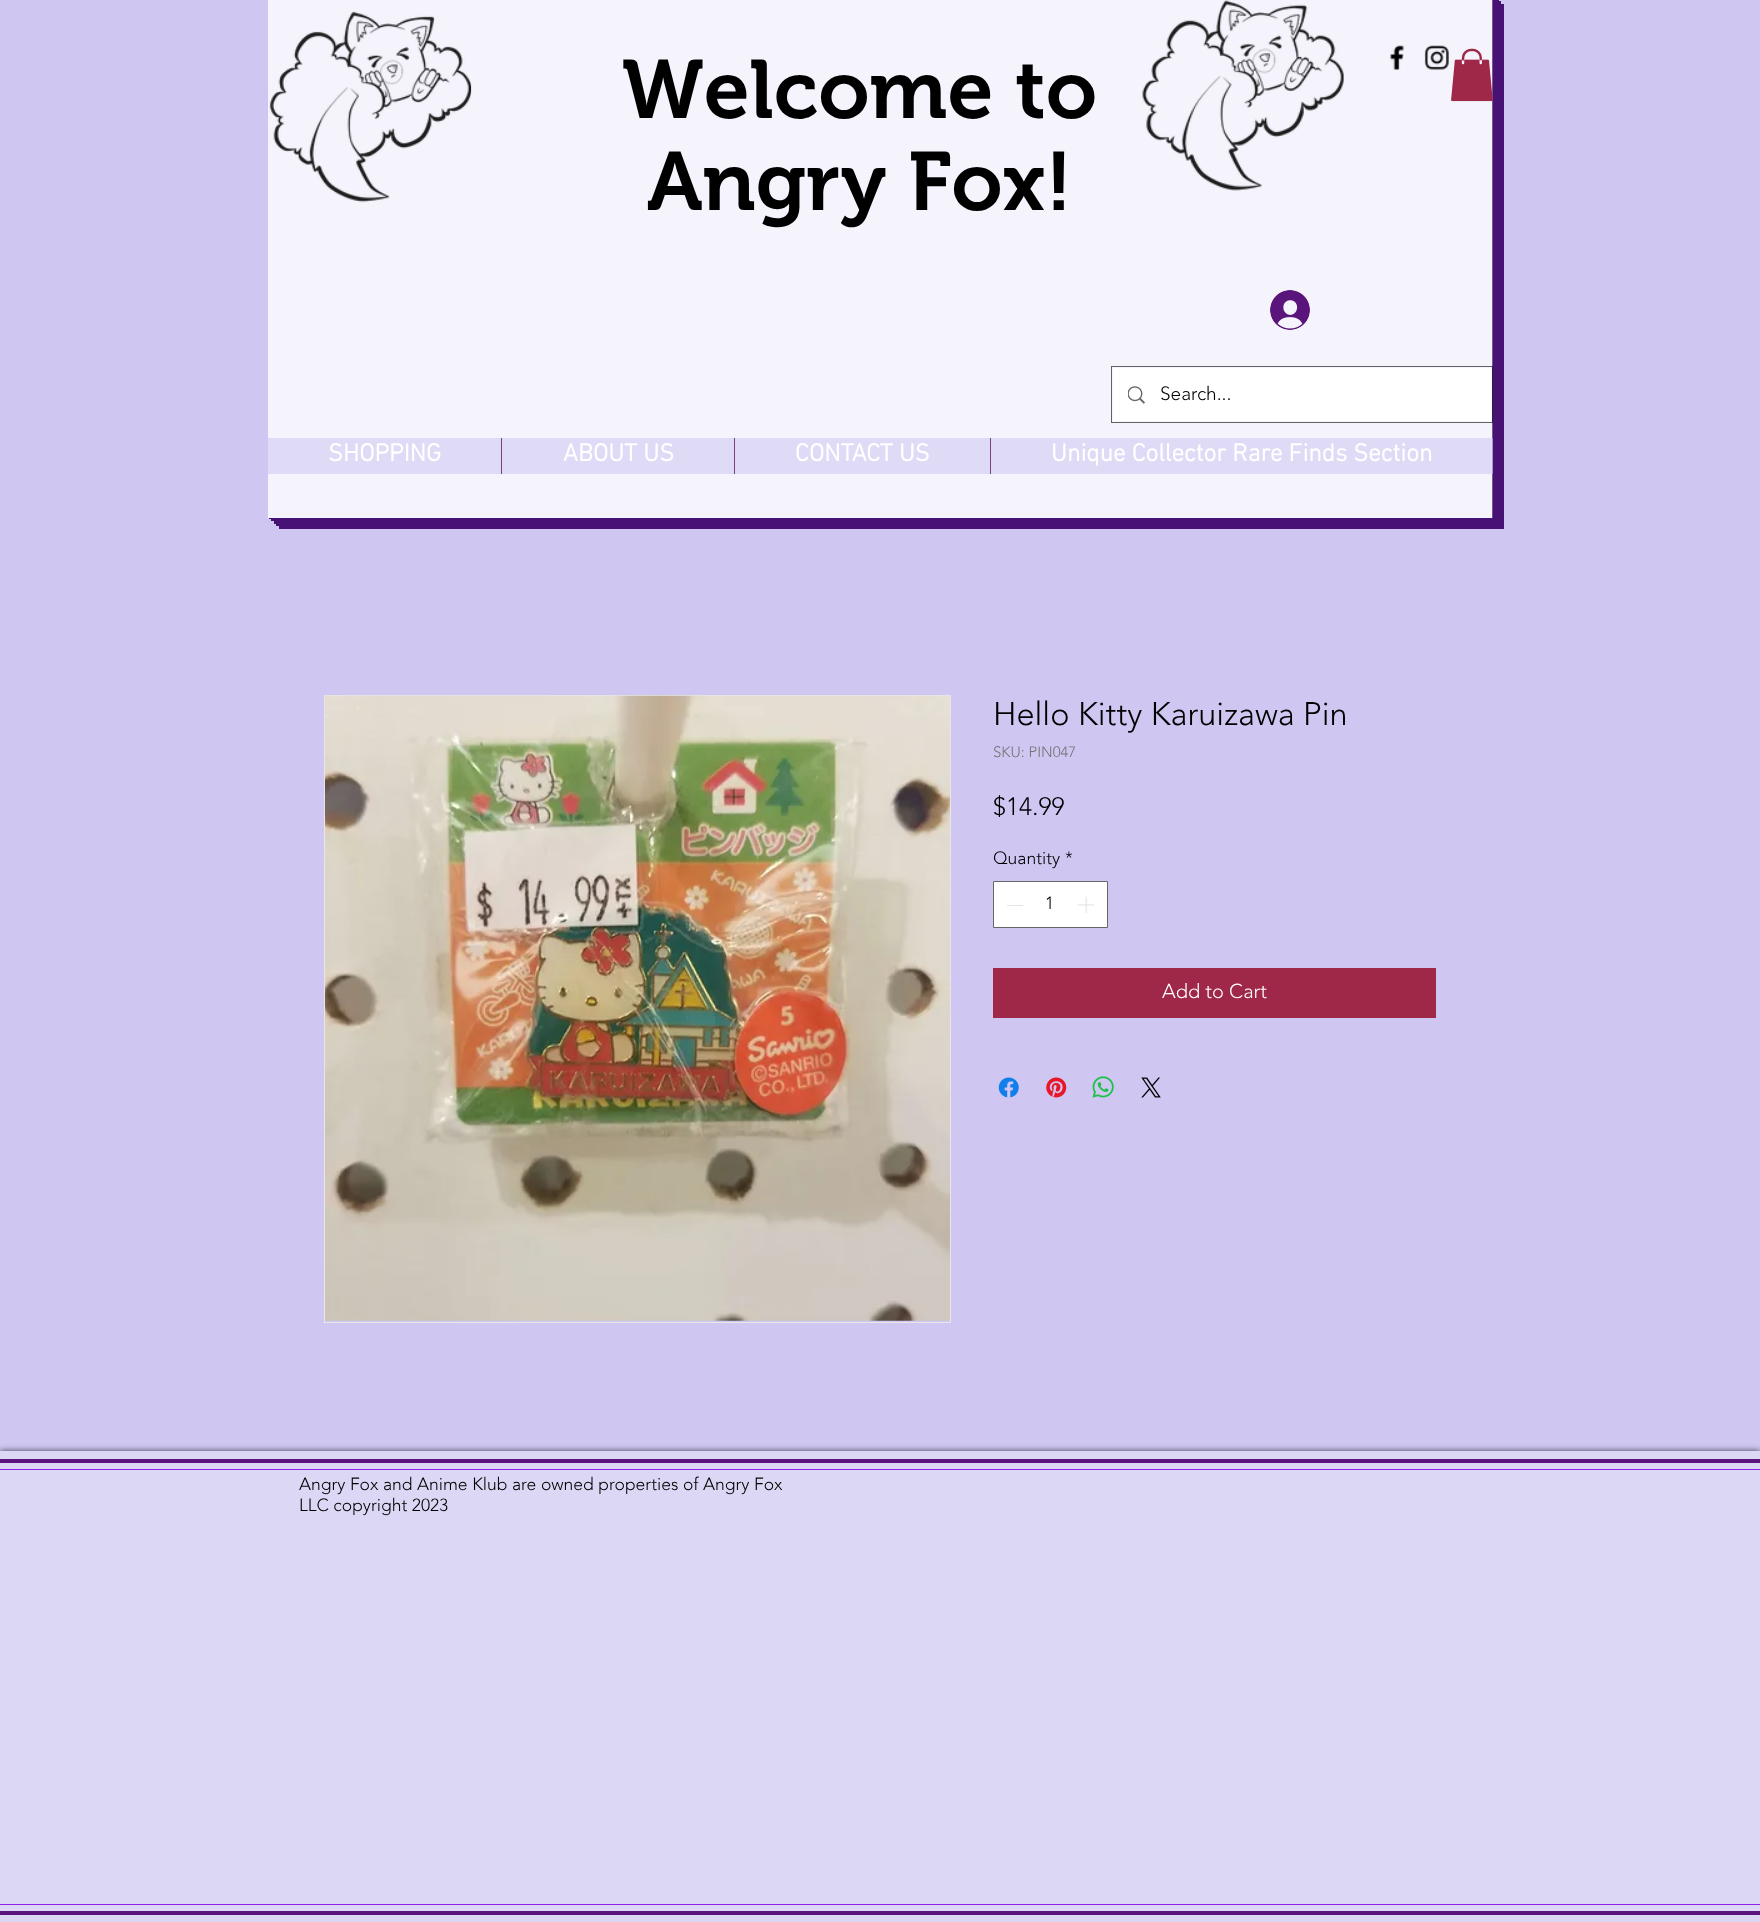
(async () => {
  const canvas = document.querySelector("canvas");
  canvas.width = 1760;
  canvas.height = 1922;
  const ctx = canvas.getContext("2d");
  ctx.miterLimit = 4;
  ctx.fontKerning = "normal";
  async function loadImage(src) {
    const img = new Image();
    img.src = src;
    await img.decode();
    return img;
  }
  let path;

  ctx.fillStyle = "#cfc7f2";
  ctx.fillRect(0, 0, 1760, 1922);
  ctx.fillStyle = "#f2f0fb";
  ctx.fillRect(268, 0, 1224, 518);
  ctx.fillStyle = "#471273";
  path = new Path2D("M279 518V529H1504V4H1492V518Z");
  ctx.fill(path);
  path = new Path2D("M276 518V526H1501V1H1492V518Z");
  ctx.fill(path);
  path = new Path2D("M274 518V524H1499V-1H1492V518Z");
  ctx.fill(path);
  path = new Path2D("M271 518V521H1496V-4H1492V518Z");
  ctx.fill(path);
  path = new Path2D("M269 518V519H1494V-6H1492V518Z");
  ctx.fill(path);
  ctx.fillStyle = "rgba(255, 255, 255, 0.28)";
  ctx.fillRect(268, 0, 1225, 518);
  ctx.drawImage(await loadImage("img/1.png"), 269, 11, 203, 192);
  ctx.drawImage(await loadImage("img/2.png"), 1142, 0, 202, 191);
  ctx.drawImage(await loadImage("img/3.png"), 1390, 45, 14, 25);
  ctx.drawImage(await loadImage("img/4.png"), 1424, 45, 25, 25);
  ctx.drawImage(await loadImage("img/5.png"), 1451, 48, 42, 54);
  ctx.drawImage(await loadImage("img/6.png"), 1270, 290, 40, 40);
  ctx.strokeStyle = "rgba(0, 0, 0, 0.6)";
  ctx.strokeRect(1111.5, 366.5, 381, 56);
  ctx.fillStyle = "#ffffff";
  ctx.fillRect(1113, 368, 378, 53);
  ctx.drawImage(await loadImage("img/7.png"), 1128, 386, 17, 18);
  for (const [x, y, w, h, color] of [
    [268, 438, 1225, 36, "rgba(207, 199, 242, 0.59)"],
    [501, 438, 1, 36, "#78407c"],
    [734, 438, 1, 36, "#78407c"],
    [990, 438, 1, 36, "#78407c"],
  ]) {
    ctx.fillStyle = color;
    ctx.fillRect(x, y, w, h);
  }
  ctx.strokeStyle = "#e8e6e6";
  ctx.strokeRect(324.5, 695.5, 626, 627);
  ctx.drawImage(await loadImage("img/8.png"), 325, 695, 625, 626);
  ctx.fillStyle = "#ffffff";
  ctx.beginPath();
  ctx.rect(993.5, 881.5, 114, 46);
  ctx.fill();
  ctx.strokeStyle = "#666666";
  ctx.stroke();
  ctx.fillStyle = "#e3e3e3";
  ctx.fillRect(1007, 905, 16, 1);
  ctx.drawImage(await loadImage("img/9.png"), 1078, 896, 17, 17);
  ctx.fillStyle = "#9f2747";
  ctx.fillRect(993, 968, 443, 50);
  ctx.drawImage(await loadImage("img/10.png"), 998, 1077, 21, 21);
  ctx.drawImage(await loadImage("img/11.png"), 1046, 1077, 21, 21);
  ctx.drawImage(await loadImage("img/12.png"), 1092, 1076, 22, 22);
  ctx.drawImage(await loadImage("img/13.png"), 1141, 1077, 20, 21);
  ctx.save();
  path = new Path2D("M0 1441H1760V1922H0ZM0 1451H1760V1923H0Z");
  ctx.clip(path, "evenodd");
  ctx.fillStyle = "rgba(0, 0, 0, 0.7)";
  ctx.filter = "blur(3px)";
  ctx.beginPath();
  ctx.rect(0, 1451, 1760, 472);
  ctx.fill();
  ctx.filter = "none";
  ctx.restore();
  for (const [x, y, w, h, color] of [
    [0, 1451, 1760, 471, "rgba(255, 255, 255, 0.29)"],
    [0, 1459, 1760, 4, "#59157b"],
    [0, 1911, 1760, 4, "#59157b"],
    [0, 1469, 1760, 1, "#8d23e6"],
    [0, 1904, 1760, 1, "#8d23e6"],
  ]) {
    ctx.fillStyle = color;
    ctx.fillRect(x, y, w, h);
  }
  ctx.font = "600 82.5px 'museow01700'";
  ctx.fillStyle = "#000000";
  ctx.fillText("Welcome to", 622, 118);
  ctx.fillText("Angry Fox!", 647, 210);
  ctx.font = "300 19px 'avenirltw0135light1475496'";
  ctx.fillText("Search...", 1160, 400);
  ctx.font = "bold 25px 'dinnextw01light'";
  ctx.fillStyle = "#ffffff";
  for (const [text, x, y] of [
    ["SHOPPING", 328, 461],
    ["ABOUT US", 563, 461],
    ["CONTACT US", 795, 461],
    ["Unique Collector Rare Finds Section", 1051, 461],
  ]) {
    ctx.fillText(text, x, y);
  }
  ctx.font = "300 32.5px 'avenirltw0135light1475496'";
  ctx.fillStyle = "#000000";
  ctx.fillText("Hello Kitty Karuizawa Pin", 993, 725);
  ctx.font = "300 15px 'avenirltw0135light1475496'";
  ctx.fillStyle = "#757575";
  ctx.fillText("SKU: PIN047", 993, 757);
  ctx.font = "300 25px 'avenirltw0135light1475496'";
  ctx.fillStyle = "#000000";
  ctx.fillText("$14.99", 993, 815);
  ctx.font = "300 17.5px 'avenirltw0135light1475496'";
  for (const [text, x, y] of [
    ["Quantity", 993, 864],
    ["*", 1065, 864],
    ["1", 1045, 909],
  ]) {
    ctx.fillText(text, x, y);
  }
  ctx.font = "300 20px 'avenirltw0135light1475496'";
  ctx.fillStyle = "#ffffff";
  ctx.fillText("Add to Cart", 1162, 998);
  ctx.font = "300 17.5px 'avenirltw0135light1475496'";
  ctx.fillStyle = "#000000";
  ctx.fillText("Angry Fox and Anime Klub are owned properties of Angry Fox", 299, 1490);
  ctx.fillText("LLC copyright 2023", 299, 1511);
})();
